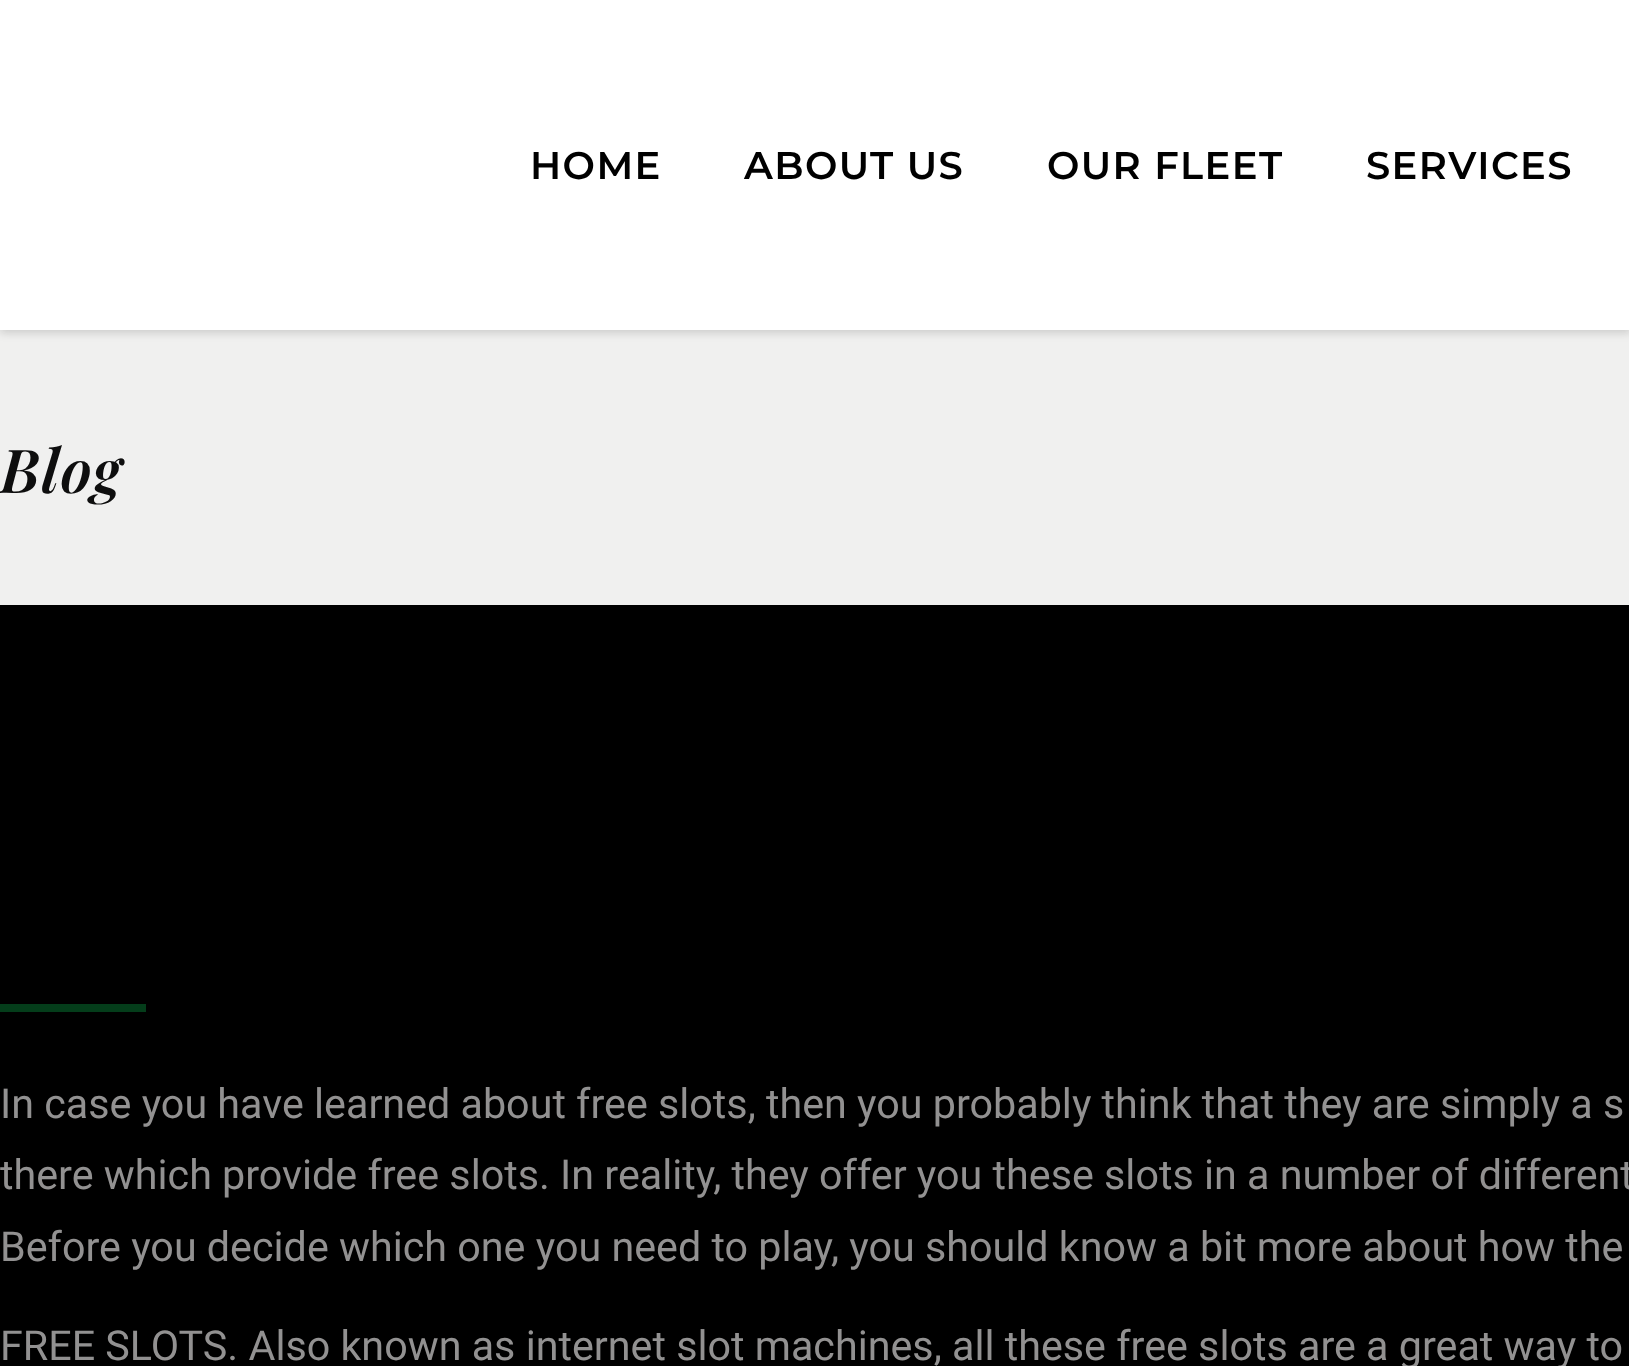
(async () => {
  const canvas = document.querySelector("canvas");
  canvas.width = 1629;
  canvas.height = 1366;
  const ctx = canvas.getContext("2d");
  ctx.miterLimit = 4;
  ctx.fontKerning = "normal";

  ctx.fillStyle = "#000000";
  ctx.fillRect(0, 0, 1629, 1366);
  ctx.fillStyle = "#f0f0ef";
  ctx.fillRect(0, 330, 1629, 275);
  ctx.fillStyle = "rgba(0, 0, 0, 0.15)";
  ctx.filter = "blur(4px)";
  ctx.beginPath();
  ctx.rect(0, 3, 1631, 330);
  ctx.fill();
  ctx.filter = "none";
  ctx.fillStyle = "#ffffff";
  ctx.fillRect(0, 0, 1629, 330);
  ctx.fillStyle = "#043d1a";
  ctx.fillRect(0, 1004, 146, 8);
  ctx.letterSpacing = "1.4px";
  ctx.font = "600 38.5px Montserrat";
  ctx.fillStyle = "#000000";
  for (const [text, x, y] of [
    ["HOME", 530, 179],
    ["ABOUT US", 744, 179],
    ["OUR FLEET", 1047, 179],
    ["SERVICES", 1366, 179],
  ]) {
    ctx.fillText(text, x, y);
  }
  ctx.font = "italic 600 60.5px Playfair Display";
  ctx.fillStyle = "#0e0e0e";
  ctx.fillText("Blog", 0, 493);
  ctx.letterSpacing = "0px";
  ctx.font = "41.25px Roboto";
  ctx.fillStyle = "#929191";
  for (const [text, x, y] of [
    ["In case you have learned about free slots, then you probably think that they are simply a s", 0, 1118],
    ["there which provide free slots. In reality, they offer you these slots in a number of different", 0, 1189],
    ["Before you decide which one you need to play, you should know a bit more about how the", 0, 1261],
    ["FREE SLOTS. Also known as internet slot machines, all these free slots are a great way to", 0, 1360],
  ]) {
    ctx.fillText(text, x, y);
  }
})();
